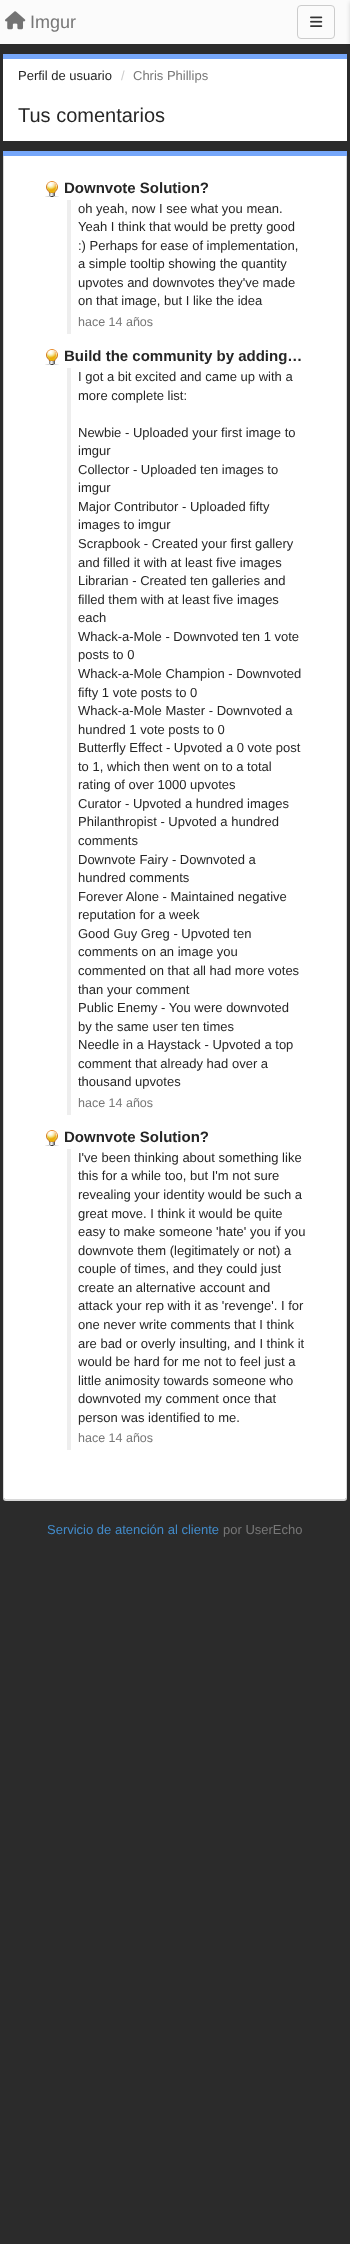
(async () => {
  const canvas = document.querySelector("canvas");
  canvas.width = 350;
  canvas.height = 2244;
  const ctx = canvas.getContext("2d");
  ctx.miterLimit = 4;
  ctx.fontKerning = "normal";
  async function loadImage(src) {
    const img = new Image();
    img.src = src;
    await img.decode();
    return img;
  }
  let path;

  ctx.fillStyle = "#2b2b2b";
  ctx.fillRect(0, 0, 350, 2244);
  ctx.fillStyle = "#fbfbfb";
  ctx.fillRect(0, 0, 350, 44);
  ctx.drawImage(await loadImage("img/1.png"), 5, 11, 21, 19);
  ctx.beginPath();
  ctx.roundRect(297.5, 5.5, 37, 33, 3.5);
  ctx.strokeStyle = "#cccccc";
  ctx.stroke();
  ctx.drawImage(await loadImage("img/2.png"), 310, 16, 13, 11);
  ctx.fillStyle = "rgba(0, 0, 0, 0.15)";
  ctx.filter = "blur(2px)";
  ctx.beginPath();
  ctx.rect(350, 2, 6, 44);
  ctx.fill();
  ctx.filter = "none";
  for (const [x, y, w, h, color] of [
    [3, 59, 344, 82, "#ffffff"],
    [3, 54, 344, 5, "#76a7fa"],
    [3, 151, 344, 5, "#76a7fa"],
  ]) {
    ctx.fillStyle = color;
    ctx.fillRect(x, y, w, h);
  }
  ctx.fillStyle = "#ffffff";
  path = new Path2D("M4 156H346V1498C346 1499 345 1499 344 1499H6C5 1499 4 1499 4 1498Z");
  ctx.fill(path);
  ctx.fillStyle = "#d8d8d8";
  path = new Path2D("M3 156H347V1498C347 1500 346 1501 344 1501H6C4 1501 3 1500 3 1498ZM4 156H346V1498C346 1499 345 1499 344 1499H6C5 1499 4 1499 4 1498Z");
  ctx.fill(path, "evenodd");
  ctx.drawImage(await loadImage("img/3.png"), 45, 181, 14, 16);
  ctx.fillStyle = "#eeeeee";
  ctx.fillRect(67, 200, 4, 134);
  ctx.drawImage(await loadImage("img/3.png"), 45, 349, 14, 16);
  ctx.fillRect(67, 368, 4, 747);
  ctx.drawImage(await loadImage("img/3.png"), 45, 1130, 14, 16);
  ctx.fillRect(67, 1149, 4, 301);
  ctx.font = "18px Liberation Sans";
  ctx.fillStyle = "#777777";
  ctx.fillText("Imgur", 30, 28);
  ctx.font = "13px Liberation Sans";
  ctx.fillStyle = "#262626";
  ctx.fillText("Perfil de usuario", 18, 80);
  ctx.fillStyle = "#cccccc";
  ctx.fillText("/", 121, 80);
  ctx.fillStyle = "#777777";
  ctx.fillText("Chris Phillips", 133, 80);
  ctx.font = "20px Liberation Sans";
  ctx.fillStyle = "#262626";
  ctx.fillText("Tus comentarios", 18, 122);
  ctx.font = "bold 15px Liberation Sans";
  ctx.fillText("Downvote Solution?", 64, 193);
  ctx.font = "13px Liberation Sans";
  for (const [text, x, y] of [
    ["oh yeah, now I see what you mean.", 78, 213],
    ["Yeah I think that would be pretty good", 78, 231],
    [":) Perhaps for ease of implementation,", 78, 250],
    ["a simple tooltip showing the quantity", 78, 268],
    ["upvotes and downvotes they've made", 78, 287],
    ["on that image, but I like the idea", 78, 305],
  ]) {
    ctx.fillText(text, x, y);
  }
  ctx.font = "12.5px Liberation Sans";
  ctx.fillStyle = "#777777";
  ctx.fillText("hace 14 años", 78, 326);
  ctx.font = "bold 15px Liberation Sans";
  ctx.fillStyle = "#262626";
  ctx.fillText("Build the community by adding…", 64, 361);
  ctx.font = "13px Liberation Sans";
  for (const [text, x, y] of [
    ["I got a bit excited and came up with a", 78, 381],
    ["more complete list:", 78, 400],
    ["Newbie - Uploaded your first image to", 78, 437],
    ["imgur", 78, 455],
    ["Collector - Uploaded ten images to", 78, 474],
    ["imgur", 78, 492],
    ["Major Contributor - Uploaded fifty", 78, 511],
    ["images to imgur", 78, 529],
    ["Scrapbook - Created your first gallery", 78, 548],
    ["and filled it with at least five images", 78, 567],
    ["Librarian - Created ten galleries and", 78, 585],
    ["filled them with at least five images", 78, 604],
    ["each", 78, 622],
    ["Whack-a-Mole - Downvoted ten 1 vote", 78, 641],
    ["posts to 0", 78, 659],
    ["Whack-a-Mole Champion - Downvoted", 78, 678],
    ["fifty 1 vote posts to 0", 78, 697],
    ["Whack-a-Mole Master - Downvoted a", 78, 715],
    ["hundred 1 vote posts to 0", 78, 734],
    ["Butterfly Effect - Upvoted a 0 vote post", 78, 752],
    ["to 1, which then went on to a total", 78, 771],
    ["rating of over 1000 upvotes", 78, 789],
    ["Curator - Upvoted a hundred images", 78, 808],
    ["Philanthropist - Upvoted a hundred", 78, 826],
    ["comments", 78, 845],
    ["Downvote Fairy - Downvoted a", 78, 864],
    ["hundred comments", 78, 882],
    ["Forever Alone - Maintained negative", 78, 901],
    ["reputation for a week", 78, 919],
    ["Good Guy Greg - Upvoted ten", 78, 938],
    ["comments on an image you", 78, 956],
    ["commented on that all had more votes", 78, 975],
    ["than your comment", 78, 994],
    ["Public Enemy - You were downvoted", 78, 1012],
    ["by the same user ten times", 78, 1031],
    ["Needle in a Haystack - Upvoted a top", 78, 1049],
    ["comment that already had over a", 78, 1068],
    ["thousand upvotes", 78, 1086],
  ]) {
    ctx.fillText(text, x, y);
  }
  ctx.font = "12.5px Liberation Sans";
  ctx.fillStyle = "#777777";
  ctx.fillText("hace 14 años", 78, 1107);
  ctx.font = "bold 15px Liberation Sans";
  ctx.fillStyle = "#262626";
  ctx.fillText("Downvote Solution?", 64, 1142);
  ctx.font = "13px Liberation Sans";
  for (const [text, x, y] of [
    ["I've been thinking about something like", 78, 1162],
    ["this for a while too, but I'm not sure", 78, 1180],
    ["revealing your identity would be such a", 78, 1199],
    ["great move. I think it would be quite", 78, 1218],
    ["easy to make someone 'hate' you if you", 78, 1236],
    ["downvote them (legitimately or not) a", 78, 1255],
    ["couple of times, and they could just", 78, 1273],
    ["create an alternative account and", 78, 1292],
    ["attack your rep with it as 'revenge'. I for", 78, 1310],
    ["one never write comments that I think", 78, 1329],
    ["are bad or overly insulting, and I think it", 78, 1348],
    ["would be hard for me not to feel just a", 78, 1366],
    ["little animosity towards someone who", 78, 1385],
    ["downvoted my comment once that", 78, 1403],
    ["person was identified to me.", 78, 1422],
  ]) {
    ctx.fillText(text, x, y);
  }
  ctx.font = "12.5px Liberation Sans";
  ctx.fillStyle = "#777777";
  ctx.fillText("hace 14 años", 78, 1442);
  ctx.font = "13px Liberation Sans";
  ctx.fillStyle = "#428bca";
  ctx.fillText("Servicio de atención al cliente", 47, 1534);
  ctx.fillStyle = "#777777";
  ctx.fillText("por UserEcho", 223, 1534);
})();
